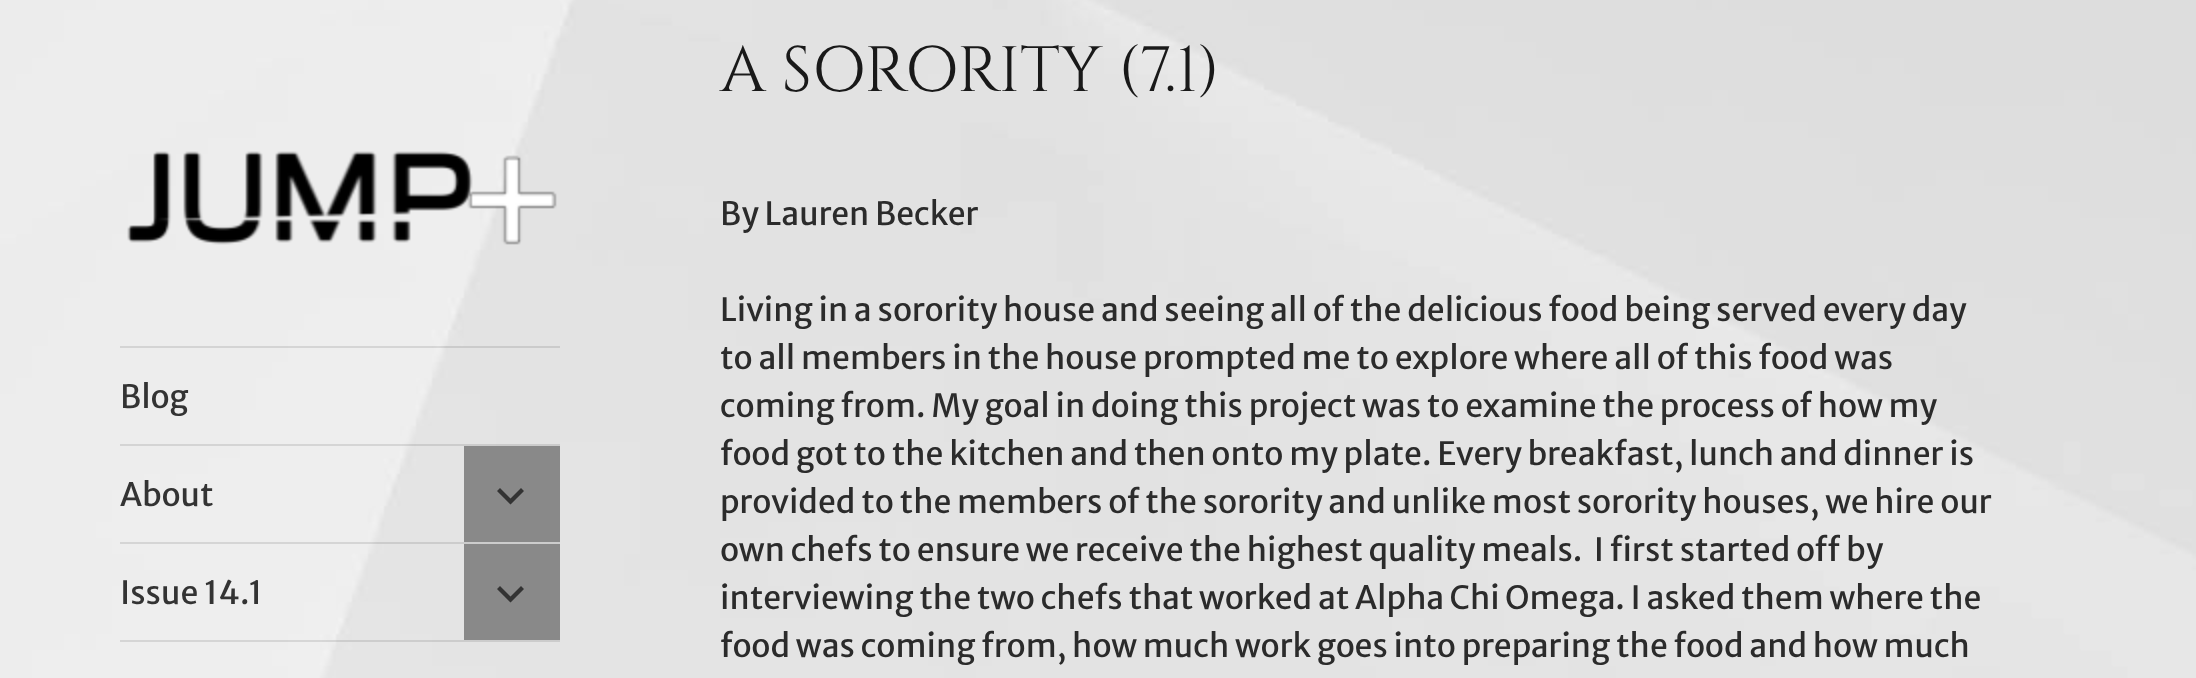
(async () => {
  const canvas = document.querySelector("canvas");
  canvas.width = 2196;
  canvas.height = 678;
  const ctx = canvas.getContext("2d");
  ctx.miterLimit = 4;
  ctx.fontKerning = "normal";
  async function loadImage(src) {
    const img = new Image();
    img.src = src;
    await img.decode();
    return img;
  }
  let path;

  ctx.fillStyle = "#ffffff";
  ctx.fillRect(0, 0, 2196, 678);
  ctx.drawImage(await loadImage("img/1.png"), 0, 0, 2196, 678);
  ctx.drawImage(await loadImage("img/2.png"), 127, 151, 430, 94);
  for (const [x, y, w, h, color] of [
    [120, 346, 440, 2, "rgba(0, 0, 0, 0.1)"],
    [120, 444, 440, 2, "rgba(0, 0, 0, 0.1)"],
    [464, 446, 96, 96, "#898989"],
  ]) {
    ctx.fillStyle = color;
    ctx.fillRect(x, y, w, h);
  }
  ctx.fillStyle = "#333333";
  path = new Path2D("M521 488L524 491L510.5 504.5L497 491L500 488L510.5 498.5Z");
  ctx.fill(path);
  ctx.fillStyle = "rgba(0, 0, 0, 0.1)";
  ctx.fillRect(120, 542, 440, 2);
  ctx.fillStyle = "#898989";
  ctx.fillRect(464, 544, 96, 96);
  ctx.fillStyle = "#333333";
  path = new Path2D("M521 586L524 589L510.5 602.5L497 589L500 586L510.5 596.5Z");
  ctx.fill(path);
  ctx.fillStyle = "rgba(0, 0, 0, 0.1)";
  ctx.fillRect(120, 640, 440, 2);
  ctx.font = "32px Merriweather Sans";
  ctx.fillStyle = "#333333";
  for (const [text, x, y] of [
    ["Blog", 120, 408],
    ["About", 120, 506],
    ["Issue 14.1", 120, 604],
  ]) {
    ctx.fillText(text, x, y);
  }
  ctx.font = "64px Cinzel";
  ctx.fillStyle = "#191919";
  ctx.fillText("A SORORITY (7.1)", 720, 91);
  ctx.font = "32px Merriweather Sans";
  ctx.fillStyle = "#2b2b2b";
  for (const [text, x, y] of [
    ["By Lauren Becker", 720, 225],
    ["Living in a sorority house and seeing all of the delicious food being served every day", 720, 321],
    ["to all members in the house prompted me to explore where all of this food was", 720, 369],
    ["coming from. My goal in doing this project was to examine the process of how my", 720, 417],
    ["food got to the kitchen and then onto my plate. Every breakfast, lunch and dinner is", 720, 465],
    ["provided to the members of the sorority and unlike most sorority houses, we hire our", 720, 513],
    ["own chefs to ensure we receive the highest quality meals.  I first started off by", 720, 561],
    ["interviewing the two chefs that worked at Alpha Chi Omega. I asked them where the", 720, 609],
    ["food was coming from, how much work goes into preparing the food and how much", 720, 657],
  ]) {
    ctx.fillText(text, x, y);
  }
})();
